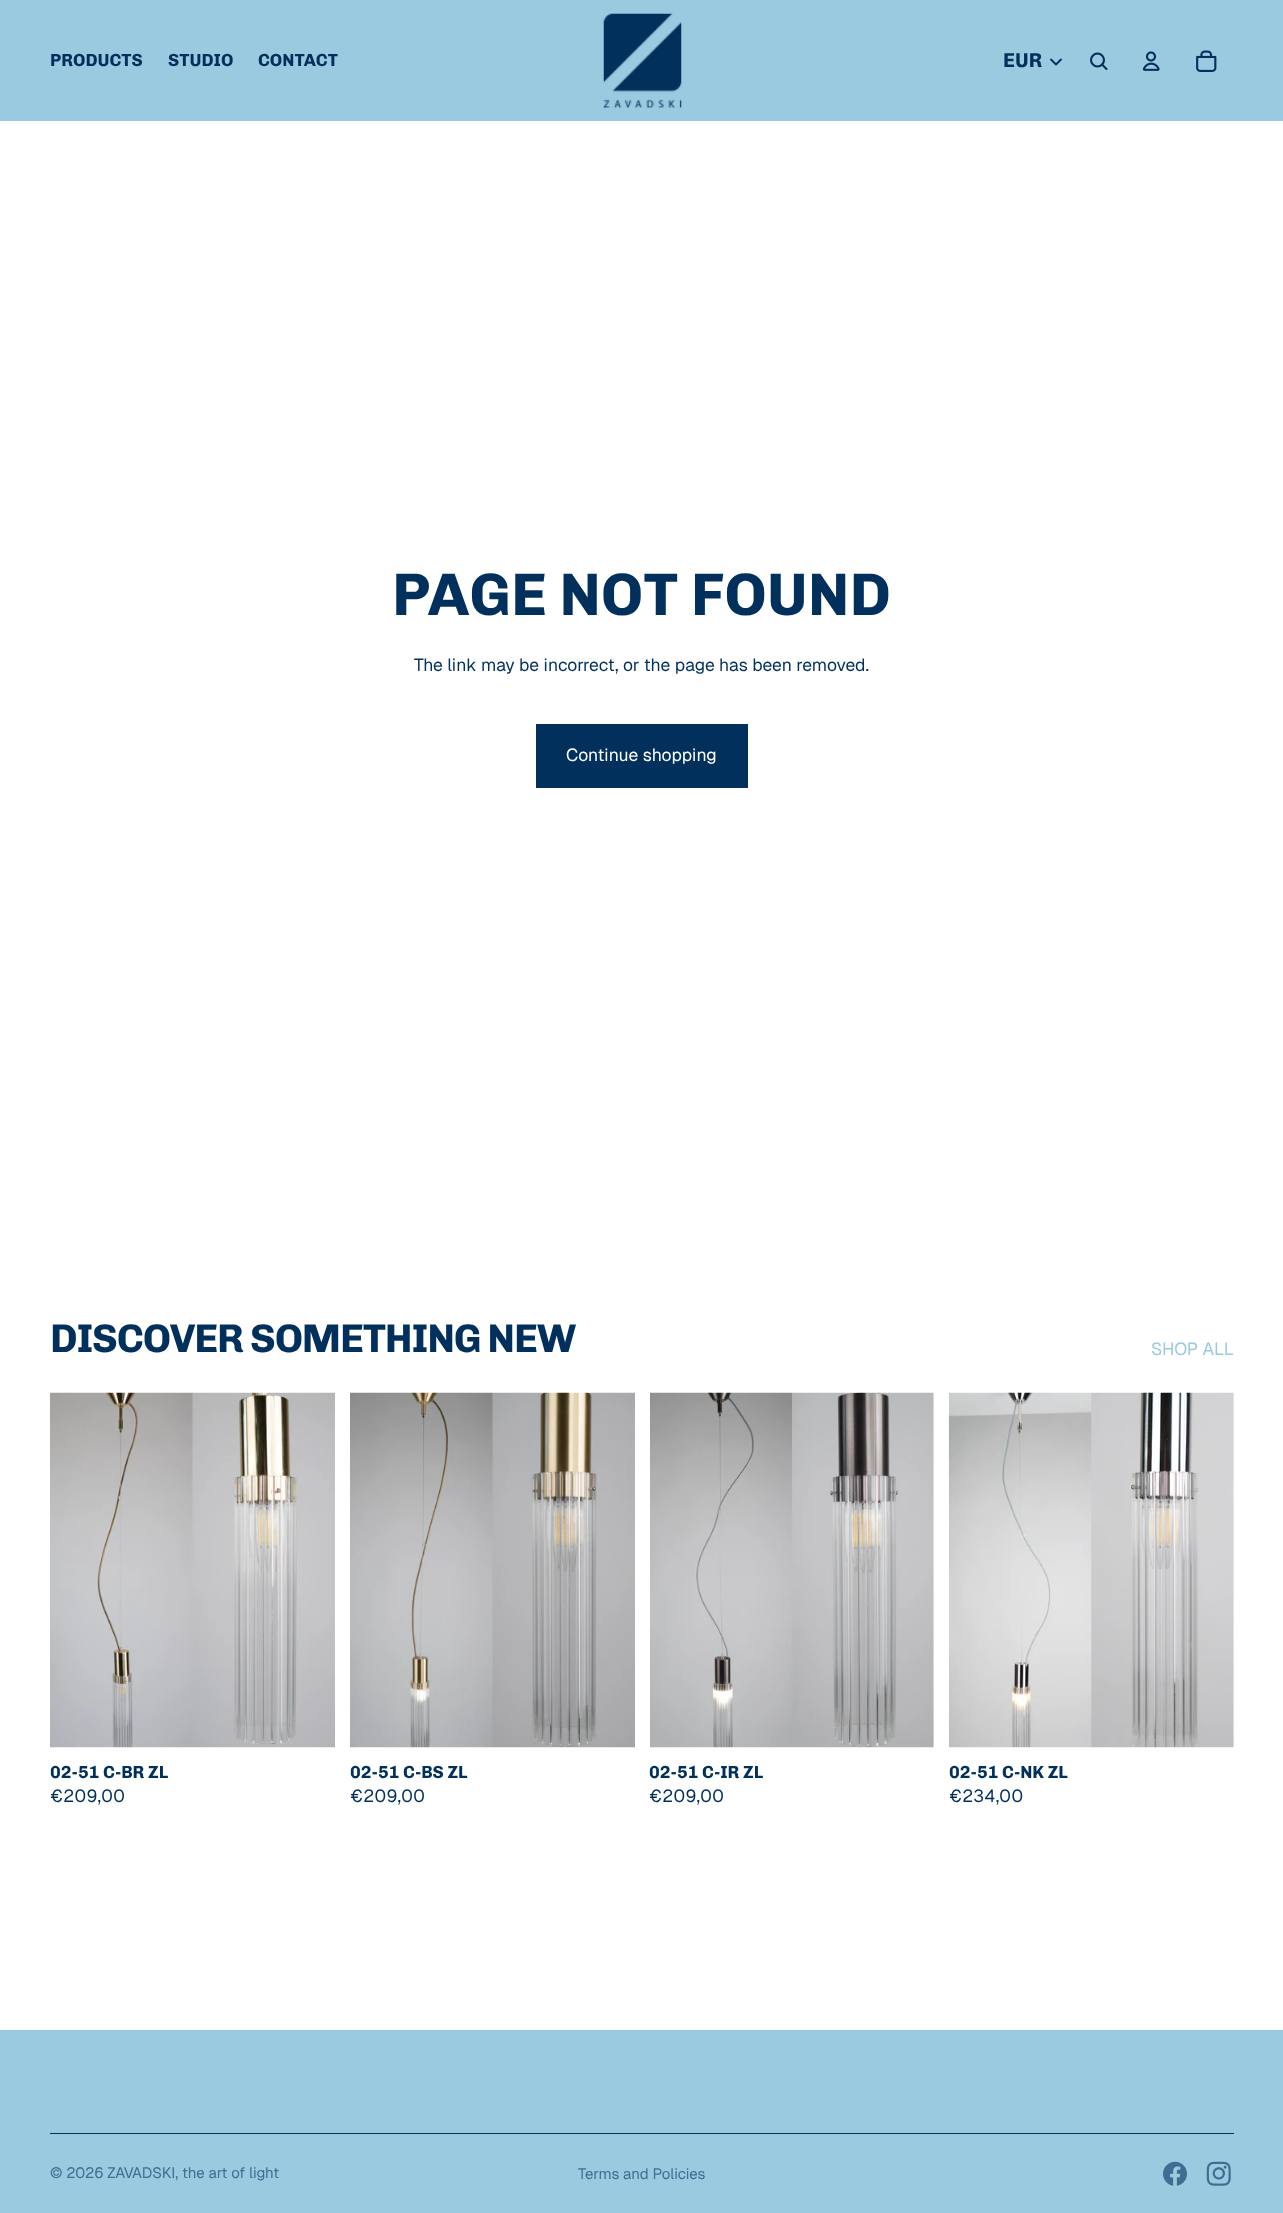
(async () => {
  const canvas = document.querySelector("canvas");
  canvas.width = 1283;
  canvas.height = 2213;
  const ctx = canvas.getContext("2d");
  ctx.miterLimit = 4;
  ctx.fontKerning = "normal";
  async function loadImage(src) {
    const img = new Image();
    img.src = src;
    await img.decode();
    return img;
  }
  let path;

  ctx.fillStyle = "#ffffff";
  ctx.fillRect(0, 0, 1283, 2213);
  ctx.fillStyle = "#9acae0";
  ctx.fillRect(0, 0, 1283, 121);
  ctx.drawImage(await loadImage("img/1.png"), 603, 13, 79, 95);
  path = new Path2D("M1061 59.5L1056 64.5L1051 59.5");
  ctx.strokeStyle = "#00305b";
  ctx.lineWidth = 1.8;
  ctx.lineCap = "round";
  ctx.lineJoin = "round";
  ctx.stroke(path);
  ctx.beginPath();
  ctx.arc(1097.5, 60, 6.5, 0, Math.PI * 2);
  ctx.lineWidth = 2.1;
  ctx.stroke();
  path = new Path2D("M1102 64.5L1106.5 69");
  ctx.stroke(path);
  ctx.drawImage(await loadImage("img/2.png"), 1142, 51, 18, 20);
  ctx.drawImage(await loadImage("img/3.png"), 1196, 50, 21, 22);
  ctx.fillStyle = "#00305b";
  ctx.fillRect(536, 724, 212, 64);
  ctx.drawImage(await loadImage("img/4.png"), 50, 1392, 285, 356);
  ctx.drawImage(await loadImage("img/5.png"), 350, 1392, 285, 356);
  ctx.drawImage(await loadImage("img/6.png"), 650, 1392, 284, 356);
  ctx.drawImage(await loadImage("img/7.png"), 948, 1392, 286, 356);
  ctx.fillStyle = "#9acae0";
  ctx.fillRect(0, 2030, 1283, 183);
  ctx.fillStyle = "#00305b";
  ctx.fillRect(50, 2133, 1184, 1);
  ctx.drawImage(await loadImage("img/8.png"), 1163, 2161, 24, 25);
  ctx.drawImage(await loadImage("img/9.png"), 1206, 2161, 25, 25);
  ctx.font = "bold 17.5px Chivo";
  for (const [text, x, y] of [
    ["PRODUCTS", 50, 66],
    ["STUDIO", 168, 66],
    ["CONTACT", 258, 66],
  ]) {
    ctx.fillText(text, x, y);
  }
  ctx.font = "bold 20px Chivo";
  ctx.fillText("EUR", 1003, 67);
  ctx.font = "bold 60px Chivo";
  ctx.fillText("PAGE NOT FOUND", 392, 615);
  ctx.font = "17.5px Geist";
  ctx.fillText("The link may be incorrect, or the page has been removed.", 414, 671);
  ctx.fillStyle = "#ffffff";
  ctx.fillText("Continue shopping", 566, 761);
  ctx.letterSpacing = "-1.2px";
  ctx.font = "bold 40px Chivo";
  ctx.fillStyle = "#00305b";
  ctx.fillText("DISCOVER SOMETHING NEW", 50, 1352);
  ctx.letterSpacing = "0px";
  ctx.font = "17.5px Geist";
  ctx.fillStyle = "#9acae0";
  ctx.fillText("SHOP ALL", 1151, 1355);
  ctx.font = "bold 17.5px Chivo";
  ctx.fillStyle = "#00305b";
  ctx.fillText("02-51 C-BR ZL", 50, 1778);
  ctx.letterSpacing = "0.5px";
  ctx.font = "17.5px Geist";
  ctx.fillText("€209,00", 50, 1802);
  ctx.letterSpacing = "0px";
  ctx.font = "bold 17.5px Chivo";
  ctx.fillText("02-51 C-BS ZL", 350, 1778);
  ctx.letterSpacing = "0.5px";
  ctx.font = "17.5px Geist";
  ctx.fillText("€209,00", 350, 1802);
  ctx.letterSpacing = "0px";
  ctx.font = "bold 17.5px Chivo";
  ctx.fillText("02-51 C-IR ZL", 649, 1778);
  ctx.letterSpacing = "0.5px";
  ctx.font = "17.5px Geist";
  ctx.fillText("€209,00", 649, 1802);
  ctx.letterSpacing = "0px";
  ctx.font = "bold 17.5px Chivo";
  ctx.fillText("02-51 C-NK ZL", 949, 1778);
  ctx.letterSpacing = "0.5px";
  ctx.font = "17.5px Geist";
  ctx.fillText("€234,00", 949, 1802);
  ctx.letterSpacing = "0px";
  ctx.font = "15px Geist";
  ctx.fillStyle = "#3e6e90";
  ctx.fillText("© 2026 ZAVADSKI, the art of light", 50, 2178);
  ctx.fillText("Terms and Policies", 578, 2179);
})();
